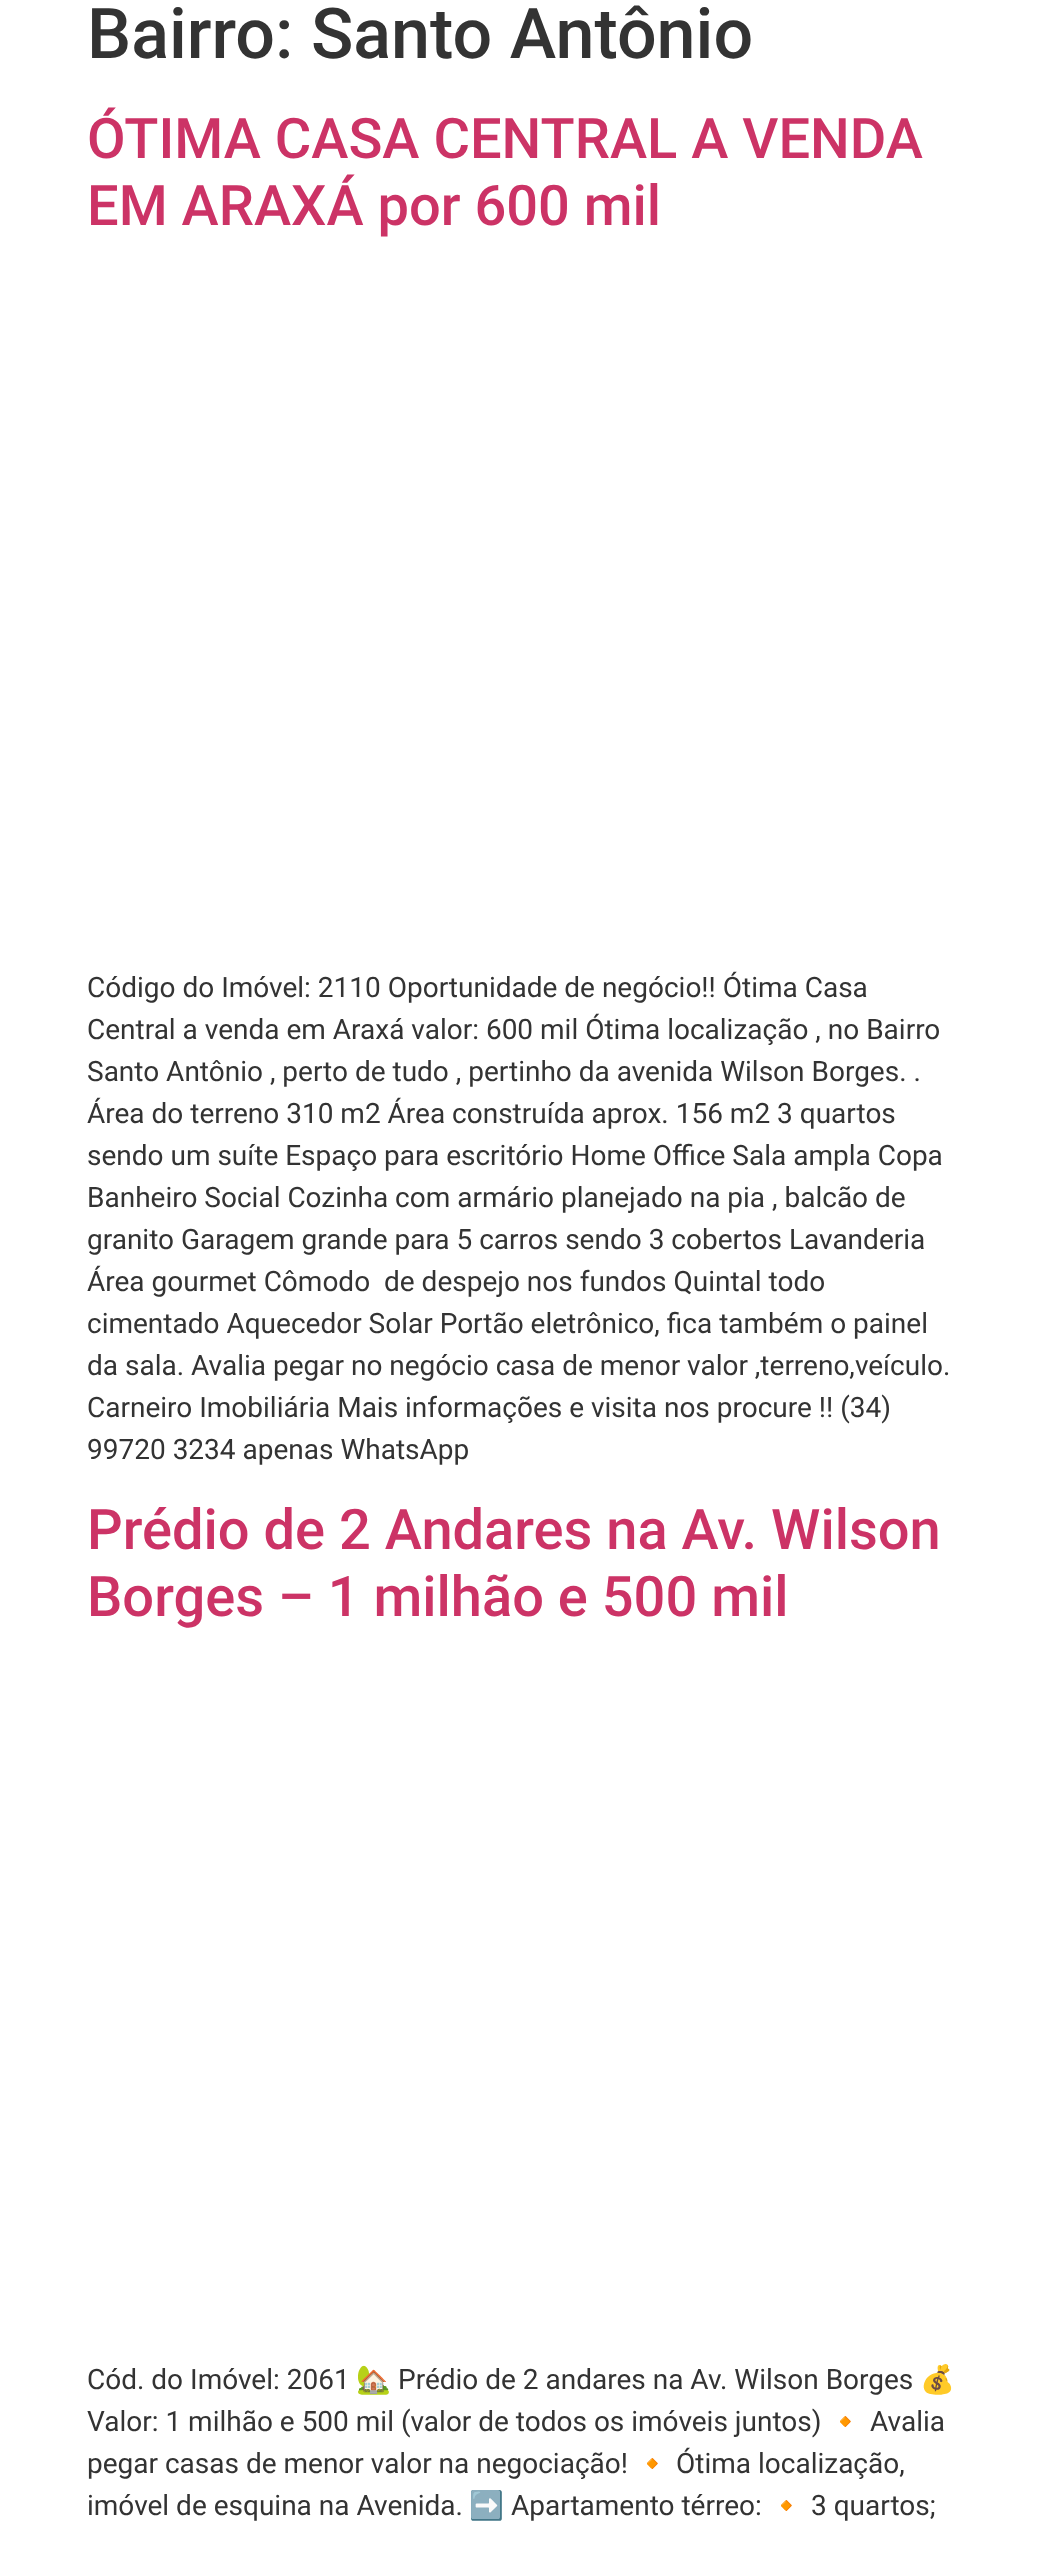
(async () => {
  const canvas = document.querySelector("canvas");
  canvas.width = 1048;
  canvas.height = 2551;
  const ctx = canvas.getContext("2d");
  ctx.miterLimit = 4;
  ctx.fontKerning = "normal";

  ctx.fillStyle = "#ffffff";
  ctx.fillRect(0, 0, 1048, 2551);
  ctx.font = "500 70px Roboto";
  ctx.fillStyle = "#333333";
  ctx.fillText("Bairro: Santo Antônio", 87, 58);
  ctx.font = "500 56px Roboto";
  ctx.fillStyle = "#cc3366";
  ctx.fillText("ÓTIMA CASA CENTRAL A VENDA", 87, 158);
  ctx.fillText("EM ARAXÁ por 600 mil", 87, 225);
  ctx.font = "28px Roboto";
  ctx.fillStyle = "#333333";
  for (const [text, x, y] of [
    ["Código do Imóvel: 2110 Oportunidade de negócio!! Ótima Casa", 87, 997],
    ["Central a venda em Araxá valor: 600 mil Ótima localização , no Bairro", 87, 1039],
    ["Santo Antônio , perto de tudo , pertinho da avenida Wilson Borges. .", 87, 1081],
    ["Área do terreno 310 m2 Área construída aprox. 156 m2 3 quartos", 87, 1123],
    ["sendo um suíte Espaço para escritório Home Office Sala ampla Copa", 87, 1165],
    ["Banheiro Social Cozinha com armário planejado na pia , balcão de", 87, 1207],
    ["granito Garagem grande para 5 carros sendo 3 cobertos Lavanderia", 87, 1249],
    ["Área gourmet Cômodo  de despejo nos fundos Quintal todo", 87, 1291],
    ["cimentado Aquecedor Solar Portão eletrônico, fica também o painel", 87, 1333],
    ["da sala. Avalia pegar no negócio casa de menor valor ,terreno,veículo.", 87, 1375],
    ["Carneiro Imobiliária Mais informações e visita nos procure !! (34)", 87, 1417],
    ["99720 3234 apenas WhatsApp", 87, 1459],
  ]) {
    ctx.fillText(text, x, y);
  }
  ctx.font = "500 56px Roboto";
  ctx.fillStyle = "#cc3366";
  ctx.fillText("Prédio de 2 Andares na Av. Wilson", 87, 1549);
  ctx.fillText("Borges – 1 milhão e 500 mil", 87, 1616);
  ctx.font = "28px Roboto";
  ctx.fillStyle = "#333333";
  ctx.fillText("Cód. do Imóvel: 2061", 87, 2389);
  ctx.font = "28px Noto Color Emoji";
  ctx.fillText("🏡", 356, 2389);
  ctx.font = "28px Roboto";
  ctx.fillText("Prédio de 2 andares na Av. Wilson Borges", 398, 2389);
  ctx.font = "28px Noto Color Emoji";
  ctx.fillText("💰", 920, 2389);
  ctx.font = "28px Roboto";
  ctx.fillText("Valor: 1 milhão e 500 mil (valor de todos os imóveis juntos)", 87, 2431);
  ctx.font = "28px Noto Color Emoji";
  ctx.fillText("🔸", 828, 2431);
  ctx.font = "28px Roboto";
  ctx.fillText("Avalia", 870, 2431);
  ctx.fillText("pegar casas de menor valor na negociação!", 87, 2473);
  ctx.font = "28px Noto Color Emoji";
  ctx.fillText("🔸", 635, 2473);
  ctx.font = "28px Roboto";
  ctx.fillText("Ótima localização,", 676, 2473);
  ctx.fillText("imóvel de esquina na Avenida.", 87, 2515);
  ctx.font = "28px Noto Color Emoji";
  ctx.fillText("➡️", 469, 2515);
  ctx.font = "28px Roboto";
  ctx.fillText("Apartamento térreo:", 511, 2515);
  ctx.font = "28px Noto Color Emoji";
  ctx.fillText("🔸", 769, 2515);
  ctx.font = "28px Roboto";
  ctx.fillText("3 quartos;", 811, 2515);
})();
